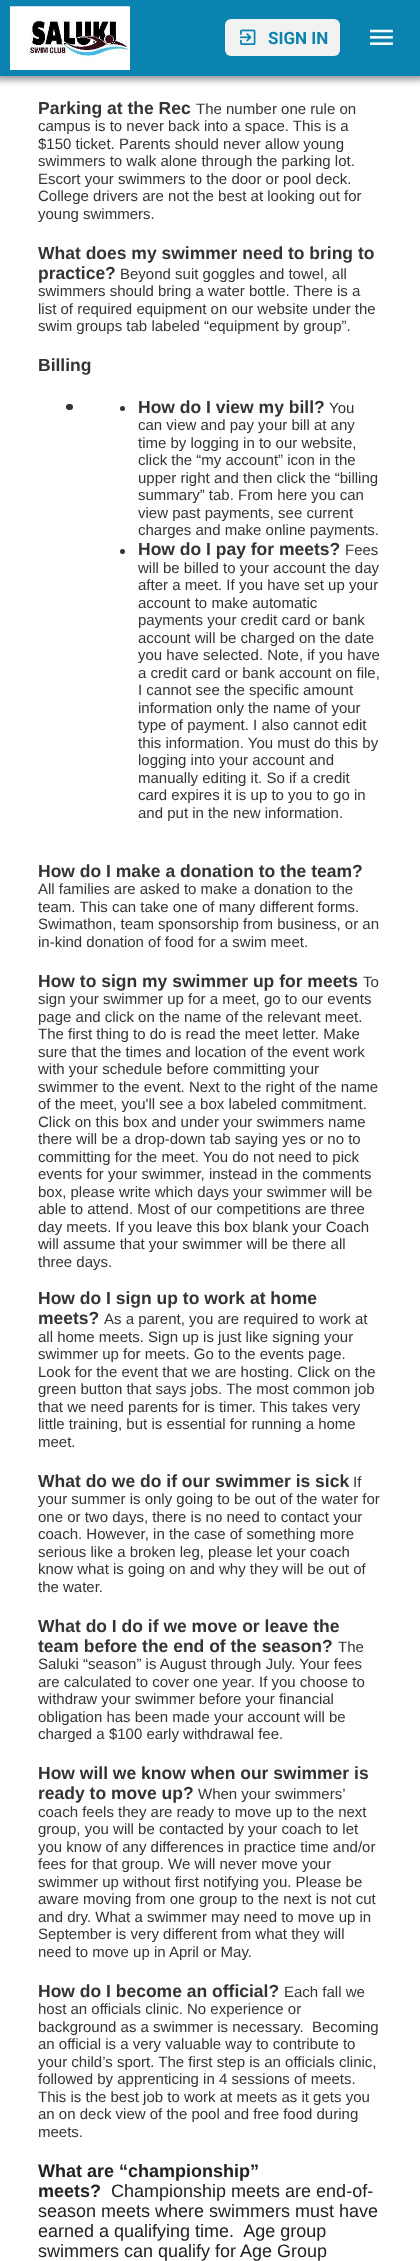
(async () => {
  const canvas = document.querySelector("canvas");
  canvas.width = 420;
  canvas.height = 2261;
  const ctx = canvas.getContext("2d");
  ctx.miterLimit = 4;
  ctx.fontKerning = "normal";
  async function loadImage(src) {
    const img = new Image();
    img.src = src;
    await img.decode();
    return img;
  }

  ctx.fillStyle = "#ffffff";
  ctx.fillRect(0, 0, 420, 2261);
  ctx.fillStyle = "rgba(0, 0, 0, 0.4)";
  ctx.filter = "blur(3px)";
  ctx.beginPath();
  ctx.rect(-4, -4, 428, 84);
  ctx.fill();
  ctx.filter = "none";
  ctx.fillStyle = "#0a83b0";
  ctx.fillRect(0, 0, 420, 76);
  ctx.drawImage(await loadImage("img/1.png"), 10, 6, 120, 64);
  ctx.fillStyle = "#f2f2f2";
  ctx.beginPath();
  ctx.roundRect(225, 19, 115, 37, 6);
  ctx.fill();
  ctx.drawImage(await loadImage("img/2.png"), 240, 29, 16, 16);
  ctx.drawImage(await loadImage("img/3.png"), 370, 29, 23, 16);
  ctx.fillStyle = "#343434";
  ctx.beginPath();
  ctx.roundRect(66, 404, 7, 6, 3);
  ctx.fill();
  ctx.beginPath();
  ctx.arc(122.5, 408.5, 2.5, 0, Math.PI * 2);
  ctx.fill();
  ctx.beginPath();
  ctx.arc(122.5, 551.5, 2.5, 0, Math.PI * 2);
  ctx.fill();
  ctx.font = "bold 17px Roboto";
  ctx.fillStyle = "#0a83b0";
  ctx.fillText("SIGN IN", 268, 44);
  ctx.font = "bold 17.5px Liberation Sans";
  ctx.fillStyle = "#343434";
  ctx.fillText("Parking at the Rec", 38, 114);
  ctx.font = "15px Liberation Sans";
  for (const [text, x, y] of [
    ["The number one rule on", 196, 114],
    ["campus is to never back into a space. This is a", 38, 131],
    ["$150 ticket. Parents should never allow young", 38, 149],
    ["swimmers to walk alone through the parking lot.", 38, 166],
    ["Escort your swimmers to the door or pool deck.", 38, 184],
    ["College drivers are not the best at looking out for", 38, 201],
    ["young swimmers.", 38, 219],
  ]) {
    ctx.fillText(text, x, y);
  }
  ctx.font = "bold 17.5px Liberation Sans";
  ctx.fillText("What does my swimmer need to bring to", 38, 259);
  ctx.fillText("practice?", 38, 279);
  ctx.font = "15px Liberation Sans";
  for (const [text, x, y] of [
    ["Beyond suit goggles and towel, all", 120, 279],
    ["swimmers should bring a water bottle. There is a", 38, 296],
    ["list of required equipment on our website under the", 38, 314],
    ["swim groups tab labeled “equipment by group”.", 38, 331],
  ]) {
    ctx.fillText(text, x, y);
  }
  ctx.font = "bold 17.5px Liberation Sans";
  ctx.fillText("Billing", 38, 371);
  ctx.fillText("How do I view my bill?", 138, 413);
  ctx.font = "15px Liberation Sans";
  for (const [text, x, y] of [
    ["You", 329, 413],
    ["can view and pay your bill at any", 138, 430],
    ["time by logging in to our website,", 138, 448],
    ["click the “my account” icon in the", 138, 465],
    ["upper right and then click the “billing", 138, 483],
    ["summary” tab. From here you can", 138, 500],
    ["view past payments, see current", 138, 518],
    ["charges and make online payments.", 138, 535],
  ]) {
    ctx.fillText(text, x, y);
  }
  ctx.font = "bold 17.5px Liberation Sans";
  ctx.fillText("How do I pay for meets?", 138, 555);
  ctx.font = "15px Liberation Sans";
  for (const [text, x, y] of [
    ["Fees", 345, 555],
    ["will be billed to your account the day", 138, 573],
    ["after a meet. If you have set up your", 138, 590],
    ["account to make automatic", 138, 608],
    ["payments your credit card or bank", 138, 625],
    ["account will be charged on the date", 138, 643],
    ["you have selected. Note, if you have", 138, 660],
    ["a credit card or bank account on file,", 138, 678],
    ["I cannot see the specific amount", 138, 695],
    ["information only the name of your", 138, 713],
    ["type of payment. I also cannot edit", 138, 730],
    ["this information. You must do this by", 138, 748],
    ["logging into your account and", 138, 765],
    ["manually editing it. So if a credit", 138, 783],
    ["card expires it is up to you to go in", 138, 800],
    ["and put in the new information.", 138, 818],
  ]) {
    ctx.fillText(text, x, y);
  }
  ctx.font = "bold 17.5px Liberation Sans";
  ctx.fillText("How do I make a donation to the team?", 38, 877);
  ctx.font = "15px Liberation Sans";
  for (const [text, x, y] of [
    ["All families are asked to make a donation to the", 38, 894],
    ["team. This can take one of many different forms.", 38, 912],
    ["Swimathon, team sponsorship from business, or an", 38, 929],
    ["in-kind donation of food for a swim meet.", 38, 947],
  ]) {
    ctx.fillText(text, x, y);
  }
  ctx.font = "bold 17.5px Liberation Sans";
  ctx.fillText("How to sign my swimmer up for meets", 38, 987);
  ctx.font = "15px Liberation Sans";
  for (const [text, x, y] of [
    ["To", 363, 987],
    ["sign your swimmer up for a meet, go to our events", 38, 1004],
    ["page and click on the name of the relevant meet.", 38, 1022],
    ["The first thing to do is read the meet letter. Make", 38, 1039],
    ["sure that the times and location of the event work", 38, 1057],
    ["with your schedule before committing your", 38, 1074],
    ["swimmer to the event. Next to the right of the name", 38, 1092],
    ["of the meet, you'll see a box labeled commitment.", 38, 1109],
    ["Click on this box and under your swimmers name", 38, 1127],
    ["there will be a drop-down tab saying yes or no to", 38, 1144],
    ["committing for the meet. You do not need to pick", 38, 1162],
    ["events for your swimmer, instead in the comments", 38, 1179],
    ["box, please write which days your swimmer will be", 38, 1197],
    ["able to attend. Most of our competitions are three", 38, 1214],
    ["day meets. If you leave this box blank your Coach", 38, 1232],
    ["will assume that your swimmer will be there all", 38, 1249],
    ["three days.", 38, 1267],
  ]) {
    ctx.fillText(text, x, y);
  }
  ctx.font = "bold 17.5px Liberation Sans";
  ctx.fillText("How do I sign up to work at home", 38, 1304);
  ctx.fillText("meets?", 38, 1324);
  ctx.font = "15px Liberation Sans";
  for (const [text, x, y] of [
    ["As a parent, you are required to work at", 104, 1324],
    ["all home meets. Sign up is just like signing your", 38, 1342],
    ["swimmer up for meets. Go to the events page.", 38, 1359],
    ["Look for the event that we are hosting. Click on the", 38, 1377],
    ["green button that says jobs. The most common job", 38, 1394],
    ["that we need parents for is timer. This takes very", 38, 1412],
    ["little training, but is essential for running a home", 38, 1429],
    ["meet.", 38, 1447],
  ]) {
    ctx.fillText(text, x, y);
  }
  ctx.font = "bold 17.5px Liberation Sans";
  ctx.fillText("What do we do if our swimmer is sick", 38, 1487);
  ctx.font = "15px Liberation Sans";
  for (const [text, x, y] of [
    ["If", 353, 1487],
    ["your summer is only going to be out of the water for", 38, 1504],
    ["one or two days, there is no need to contact your", 38, 1522],
    ["coach. However, in the case of something more", 38, 1539],
    ["serious like a broken leg, please let your coach", 38, 1557],
    ["know what is going on and why they will be out of", 38, 1574],
    ["the water.", 38, 1592],
  ]) {
    ctx.fillText(text, x, y);
  }
  ctx.font = "bold 17.5px Liberation Sans";
  ctx.fillText("What do I do if we move or leave the", 38, 1632);
  ctx.fillText("team before the end of the season?", 38, 1652);
  ctx.font = "15px Liberation Sans";
  for (const [text, x, y] of [
    ["The", 338, 1652],
    ["Saluki “season” is August through July. Your fees", 38, 1669],
    ["are calculated to cover one year. If you choose to", 38, 1687],
    ["withdraw your swimmer before your financial", 38, 1704],
    ["obligation has been made your account will be", 38, 1722],
    ["charged a $100 early withdrawal fee.", 38, 1739],
  ]) {
    ctx.fillText(text, x, y);
  }
  ctx.font = "bold 17.5px Liberation Sans";
  ctx.fillText("How will we know when our swimmer is", 38, 1779);
  ctx.fillText("ready to move up?", 38, 1799);
  ctx.font = "15px Liberation Sans";
  for (const [text, x, y] of [
    ["When your swimmers’", 198, 1799],
    ["coach feels they are ready to move up to the next", 38, 1817],
    ["group, you will be contacted by your coach to let", 38, 1834],
    ["you know of any differences in practice time and/or", 38, 1852],
    ["fees for that group. We will never move your", 38, 1869],
    ["swimmer up without first notifying you. Please be", 38, 1887],
    ["aware moving from one group to the next is not cut", 38, 1904],
    ["and dry. What a swimmer may need to move up in", 38, 1922],
    ["September is very different from what they will", 38, 1939],
    ["need to move up in April or May.", 38, 1957],
  ]) {
    ctx.fillText(text, x, y);
  }
  ctx.font = "bold 17.5px Liberation Sans";
  ctx.fillText("How do I become an official?", 38, 1997);
  ctx.font = "15px Liberation Sans";
  for (const [text, x, y] of [
    ["Each fall we", 284, 1997],
    ["host an officials clinic. No experience or", 38, 2014],
    ["background as a swimmer is necessary.  Becoming", 38, 2032],
    ["an official is a very valuable way to contribute to", 38, 2049],
    ["your child’s sport. The first step is an officials clinic,", 38, 2067],
    ["followed by apprenticing in 4 sessions of meets.", 38, 2084],
    ["This is the best job to work at meets as it gets you", 38, 2102],
    ["an on deck view of the pool and free food during", 38, 2119],
    ["meets.", 38, 2137],
  ]) {
    ctx.fillText(text, x, y);
  }
  ctx.font = "bold 18px Liberation Sans";
  ctx.fillStyle = "#212121";
  ctx.fillText("What are “championship”", 38, 2177);
  ctx.fillText("meets?", 38, 2197);
  ctx.font = "18px Liberation Sans";
  for (const [text, x, y] of [
    ["Championship meets are end-of-", 111, 2197],
    ["season meets where swimmers must have", 38, 2217],
    ["earned a qualifying time.  Age group", 38, 2237],
    ["swimmers can qualify for Age Group", 38, 2257],
  ]) {
    ctx.fillText(text, x, y);
  }
})();
